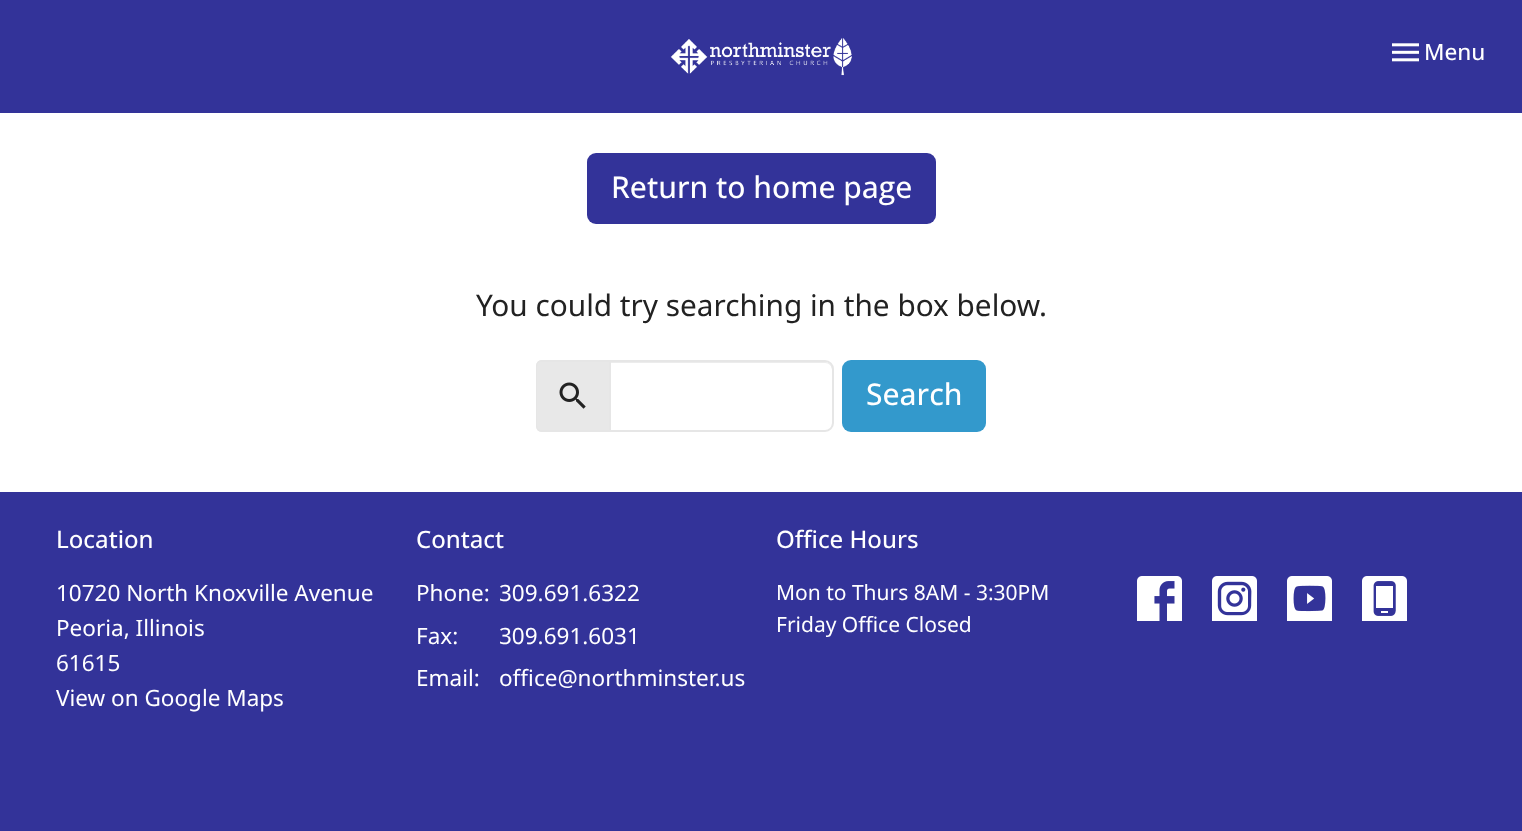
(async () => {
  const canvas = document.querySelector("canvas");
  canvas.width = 1522;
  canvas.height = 831;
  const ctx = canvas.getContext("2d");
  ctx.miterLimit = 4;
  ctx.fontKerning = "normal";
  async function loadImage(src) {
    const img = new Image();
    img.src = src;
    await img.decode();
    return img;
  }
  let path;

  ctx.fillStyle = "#ffffff";
  ctx.fillRect(0, 0, 1522, 831);
  ctx.fillStyle = "#333399";
  ctx.fillRect(0, 0, 1522, 113);
  ctx.drawImage(await loadImage("img/1.png"), 670, 38, 182, 38);
  ctx.drawImage(await loadImage("img/2.png"), 1392, 43, 27, 19);
  ctx.beginPath();
  ctx.roundRect(587, 153, 349, 71, 9);
  ctx.fill();
  ctx.fillStyle = "#e8e8e8";
  ctx.beginPath();
  ctx.roundRect(536, 360, 73, 72, [6, 0, 0, 6]);
  ctx.fill();
  ctx.fillStyle = "#e6e6e6";
  path = new Path2D("M542 360H609V432H542C538 432 536 429 536 426V366C536 363 538 360 542 360ZM542 362H609V430H542C539 430 537 428 537 426V366C537 364 539 362 542 362Z");
  ctx.fill(path, "evenodd");
  ctx.drawImage(await loadImage("img/3.png"), 559, 382, 27, 27);
  ctx.fillStyle = "#ececec";
  path = new Path2D("M611 362V363H825C829 363 832 366 832 370V424L831 428C832 427 833 425 833 423V370C833 366 829 362 825 362Z");
  ctx.fill(path);
  ctx.beginPath();
  ctx.roundRect(610, 361, 223, 70, [0, 8, 8, 0]);
  ctx.strokeStyle = "#e6e6e6";
  ctx.lineWidth = 2;
  ctx.stroke();
  ctx.fillStyle = "#3399cc";
  ctx.beginPath();
  ctx.roundRect(842, 360, 144, 72, 9);
  ctx.fill();
  ctx.fillStyle = "#333399";
  ctx.fillRect(0, 492, 1522, 339);
  ctx.drawImage(await loadImage("img/4.png"), 1137, 576, 45, 45);
  ctx.drawImage(await loadImage("img/5.png"), 1212, 576, 45, 45);
  ctx.drawImage(await loadImage("img/6.png"), 1287, 576, 45, 45);
  ctx.drawImage(await loadImage("img/7.png"), 1362, 576, 45, 45);
  ctx.font = "500 22.5px Open Sans";
  ctx.fillStyle = "#ffffff";
  ctx.fillText("Menu", 1424, 60);
  ctx.font = "500 30px Open Sans";
  ctx.fillText("Return to home page", 611, 198);
  ctx.font = "29.75px Noto Sans";
  ctx.fillStyle = "#222222";
  ctx.fillText("You could try searching in the box below.", 476, 316);
  ctx.font = "500 30px Open Sans";
  ctx.fillStyle = "#ffffff";
  ctx.fillText("Search", 866, 405);
  ctx.font = "500 24px Open Sans";
  ctx.fillText("Location", 56, 548);
  ctx.font = "22.5px Noto Sans";
  for (const [text, x, y] of [
    ["10720 North Knoxville Avenue", 56, 601],
    ["Peoria, Illinois", 56, 636],
    ["61615", 56, 671],
    ["View on Google Maps", 56, 706],
  ]) {
    ctx.fillText(text, x, y);
  }
  ctx.font = "500 24px Open Sans";
  ctx.fillText("Contact", 416, 548);
  ctx.font = "22.5px Noto Sans";
  for (const [text, x, y] of [
    ["Phone:", 416, 601],
    ["309.691.6322", 499, 601],
    ["Fax:", 416, 644],
    ["309.691.6031", 499, 644],
    ["Email:", 416, 686],
    ["office@northminster.us", 499, 686],
  ]) {
    ctx.fillText(text, x, y);
  }
  ctx.font = "500 24px Open Sans";
  ctx.fillText("Office Hours", 776, 548);
  ctx.font = "21px Noto Sans";
  ctx.fillText("Mon to Thurs 8AM - 3:30PM", 776, 600);
  ctx.fillText("Friday Office Closed", 776, 632);
})();
